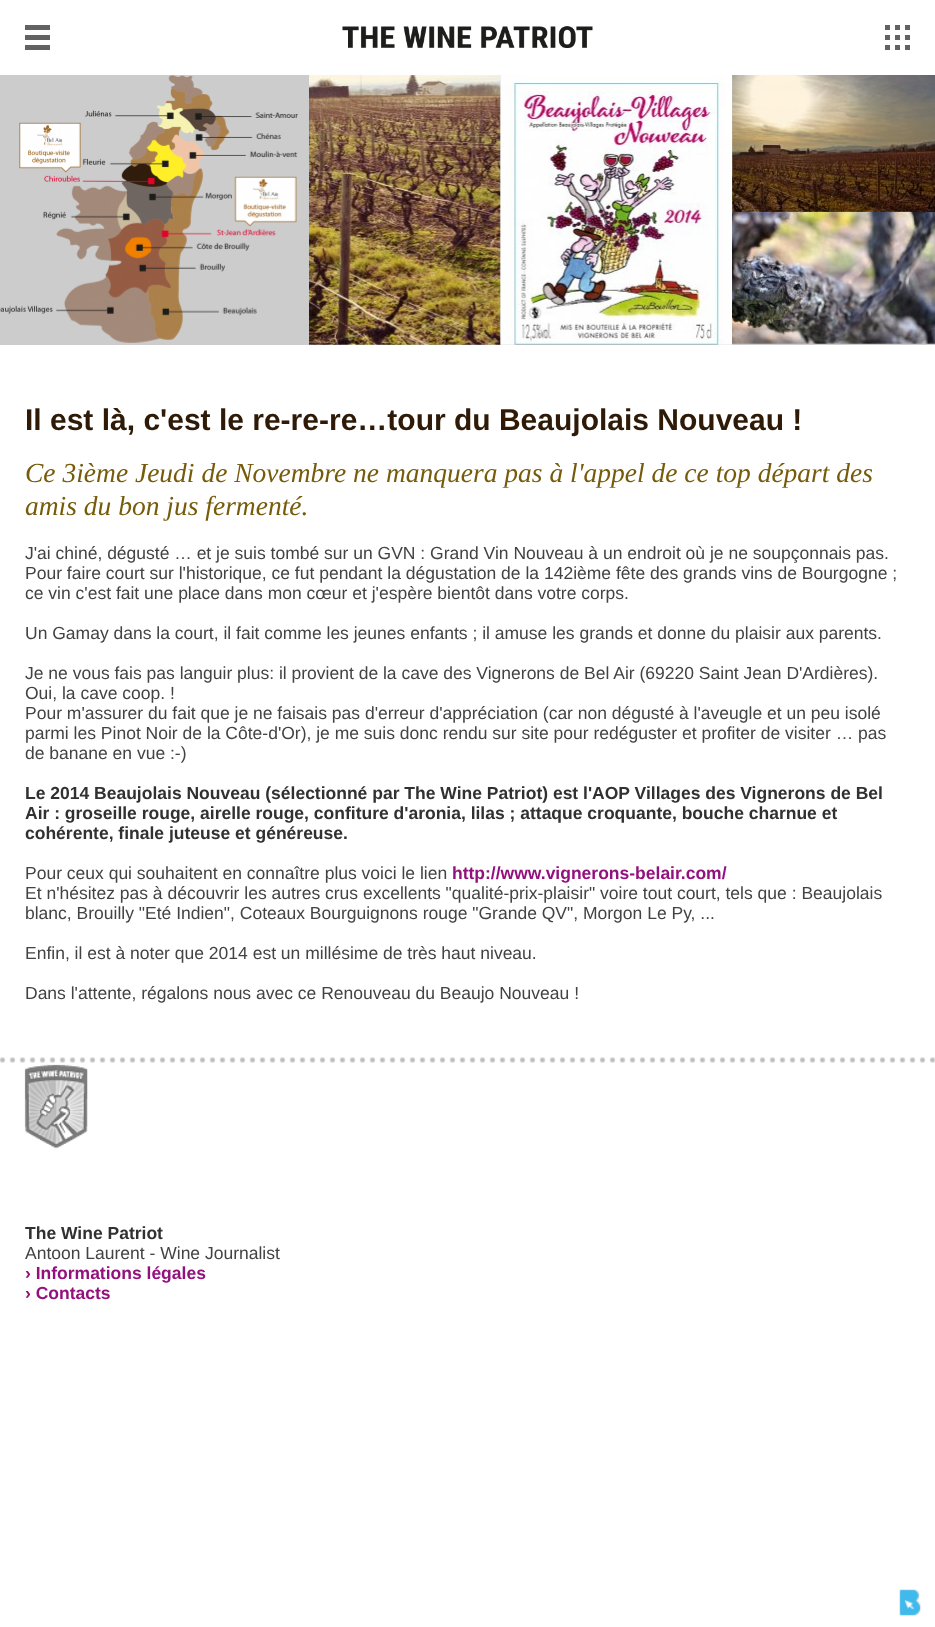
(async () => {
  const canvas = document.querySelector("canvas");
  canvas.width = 935;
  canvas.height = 1627;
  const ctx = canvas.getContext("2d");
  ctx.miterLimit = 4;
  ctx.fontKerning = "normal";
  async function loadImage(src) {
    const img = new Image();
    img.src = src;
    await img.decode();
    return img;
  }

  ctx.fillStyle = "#ffffff";
  ctx.fillRect(0, 0, 935, 1627);
  ctx.drawImage(await loadImage("img/1.png"), 25, 25, 25, 25);
  ctx.drawImage(await loadImage("img/2.png"), 342, 26, 251, 22);
  ctx.drawImage(await loadImage("img/3.png"), 885, 25, 25, 25);
  ctx.fillStyle = "#cccccc";
  ctx.fillRect(0, 75, 935, 270);
  ctx.drawImage(await loadImage("img/4.png"), 0, 75, 298, 268);
  ctx.drawImage(await loadImage("img/5.png"), 309, 75, 192, 270);
  ctx.drawImage(await loadImage("img/6.png"), 500, 75, 232, 270);
  ctx.drawImage(await loadImage("img/8.png"), 732, 173, 203, 171);
  ctx.drawImage(await loadImage("img/7.png"), 732, 75, 203, 137);
  ctx.drawImage(await loadImage("img/9.png"), 0, 1057, 935, 6);
  ctx.drawImage(await loadImage("img/10.png"), 24, 1064, 64, 85);
  ctx.drawImage(await loadImage("img/11.png"), 899, 1589, 22, 27);
  ctx.font = "bold 30px Liberation Sans";
  ctx.fillStyle = "#2e1a06";
  ctx.fillText("Il est là, c'est le re-re-re…tour du Beaujolais Nouveau !", 25, 430);
  ctx.font = "italic 27.5px Liberation Serif";
  ctx.fillStyle = "#755b0a";
  ctx.fillText("Ce 3ième Jeudi de Novembre ne manquera pas à l'appel de ce top départ des", 25, 482);
  ctx.fillText("amis du bon jus fermenté.", 25, 515);
  ctx.font = "17.5px Liberation Sans";
  ctx.fillStyle = "#434343";
  for (const [text, x, y] of [
    ["J'ai chiné, dégusté … et je suis tombé sur un GVN : Grand Vin Nouveau à un endroit où je ne soupçonnais pas.", 25, 559],
    ["Pour faire court sur l'historique, ce fut pendant la dégustation de la 142ième fête des grands vins de Bourgogne ;", 25, 579],
    ["ce vin c'est fait une place dans mon cœur et j'espère bientôt dans votre corps.", 25, 599],
    ["Un Gamay dans la court, il fait comme les jeunes enfants ; il amuse les grands et donne du plaisir aux parents.", 25, 639],
    ["Je ne vous fais pas languir plus: il provient de la cave des Vignerons de Bel Air (69220 Saint Jean D'Ardières).", 25, 679],
    ["Oui, la cave coop. !", 25, 699],
    ["Pour m'assurer du fait que je ne faisais pas d'erreur d'appréciation (car non dégusté à l'aveugle et un peu isolé", 25, 719],
    ["parmi les Pinot Noir de la Côte-d'Or), je me suis donc rendu sur site pour redéguster et profiter de visiter … pas", 25, 739],
    ["de banane en vue :-)", 25, 759],
  ]) {
    ctx.fillText(text, x, y);
  }
  ctx.font = "bold 17.5px Liberation Sans";
  ctx.fillStyle = "#313131";
  for (const [text, x, y] of [
    ["Le 2014 Beaujolais Nouveau (sélectionné par The Wine Patriot) est l'AOP Villages des Vignerons de Bel", 25, 799],
    ["Air : groseille rouge, airelle rouge, confiture d'aronia, lilas ; attaque croquante, bouche charnue et", 25, 819],
    ["cohérente, finale juteuse et généreuse.", 25, 839],
  ]) {
    ctx.fillText(text, x, y);
  }
  ctx.font = "17.5px Liberation Sans";
  ctx.fillStyle = "#434343";
  ctx.fillText("Pour ceux qui souhaitent en connaître plus voici le lien", 25, 879);
  ctx.font = "bold 17.5px Liberation Sans";
  ctx.fillStyle = "#93117e";
  ctx.fillText("http://www.vignerons-belair.com/", 452, 879);
  ctx.font = "17.5px Liberation Sans";
  ctx.fillStyle = "#434343";
  for (const [text, x, y] of [
    ["Et n'hésitez pas à découvrir les autres crus excellents \"qualité-prix-plaisir\" voire tout court, tels que : Beaujolais", 25, 899],
    ["blanc, Brouilly \"Eté Indien\", Coteaux Bourguignons rouge \"Grande QV\", Morgon Le Py, ...", 25, 919],
    ["Enfin, il est à noter que 2014 est un millésime de très haut niveau.", 25, 959],
    ["Dans l'attente, régalons nous avec ce Renouveau du Beaujo Nouveau !", 25, 999],
  ]) {
    ctx.fillText(text, x, y);
  }
  ctx.font = "bold 17.5px Liberation Sans";
  ctx.fillStyle = "#313131";
  ctx.fillText("The Wine Patriot", 25, 1239);
  ctx.font = "17.5px Liberation Sans";
  ctx.fillStyle = "#434343";
  ctx.fillText("Antoon Laurent - Wine Journalist", 25, 1259);
  ctx.font = "bold 17.5px Liberation Sans";
  ctx.fillStyle = "#93117e";
  ctx.fillText("› Informations légales", 25, 1279);
  ctx.fillText("› Contacts", 25, 1299);
})();
